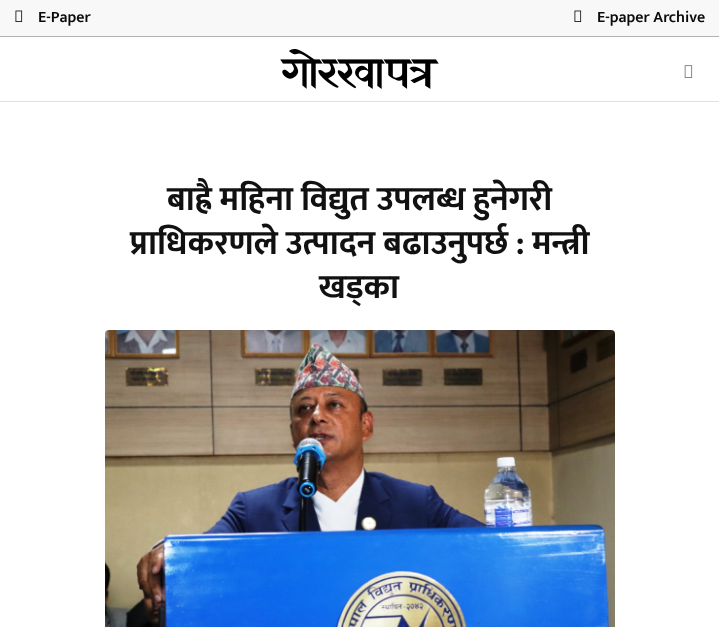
(async () => {
  const canvas = document.querySelector("canvas");
  canvas.width = 719;
  canvas.height = 627;
  const ctx = canvas.getContext("2d");
  ctx.miterLimit = 4;
  ctx.fontKerning = "normal";
  async function loadImage(src) {
    const img = new Image();
    img.src = src;
    await img.decode();
    return img;
  }

  ctx.fillStyle = "#ffffff";
  ctx.fillRect(0, 0, 719, 627);
  ctx.fillStyle = "#f8f8f8";
  ctx.fillRect(0, 0, 719, 36);
  ctx.fillStyle = "#b2b2b2";
  ctx.fillRect(0, 36, 719, 1);
  ctx.drawImage(await loadImage("img/1.png"), 15, 10, 8, 12);
  ctx.drawImage(await loadImage("img/1.png"), 574, 10, 8, 12);
  ctx.fillStyle = "#dee2e6";
  ctx.fillRect(0, 101, 719, 1);
  ctx.drawImage(await loadImage("img/2.png"), 280, 49, 159, 40);
  ctx.drawImage(await loadImage("img/3.png"), 684, 65, 9, 13);
  ctx.drawImage(await loadImage("img/4.png"), 105, 330, 510, 297);
  ctx.font = "600 16px Mukta";
  ctx.fillStyle = "#0b0b0b";
  ctx.fillText("E-Paper", 38, 22);
  ctx.fillText("E-paper Archive", 597, 22);
  ctx.font = "bold 34px Mukta";
  ctx.fillStyle = "#111111";
  for (const [text, x, y] of [
    ["बाह्रै महिना विद्युत उपलब्ध हुनेगरी", 167, 210],
    ["प्राधिकरणले उत्पादन बढाउनुपर्छ : मन्त्री", 130, 254],
    ["खड्का", 319, 298],
  ]) {
    ctx.fillText(text, x, y);
  }
})();
